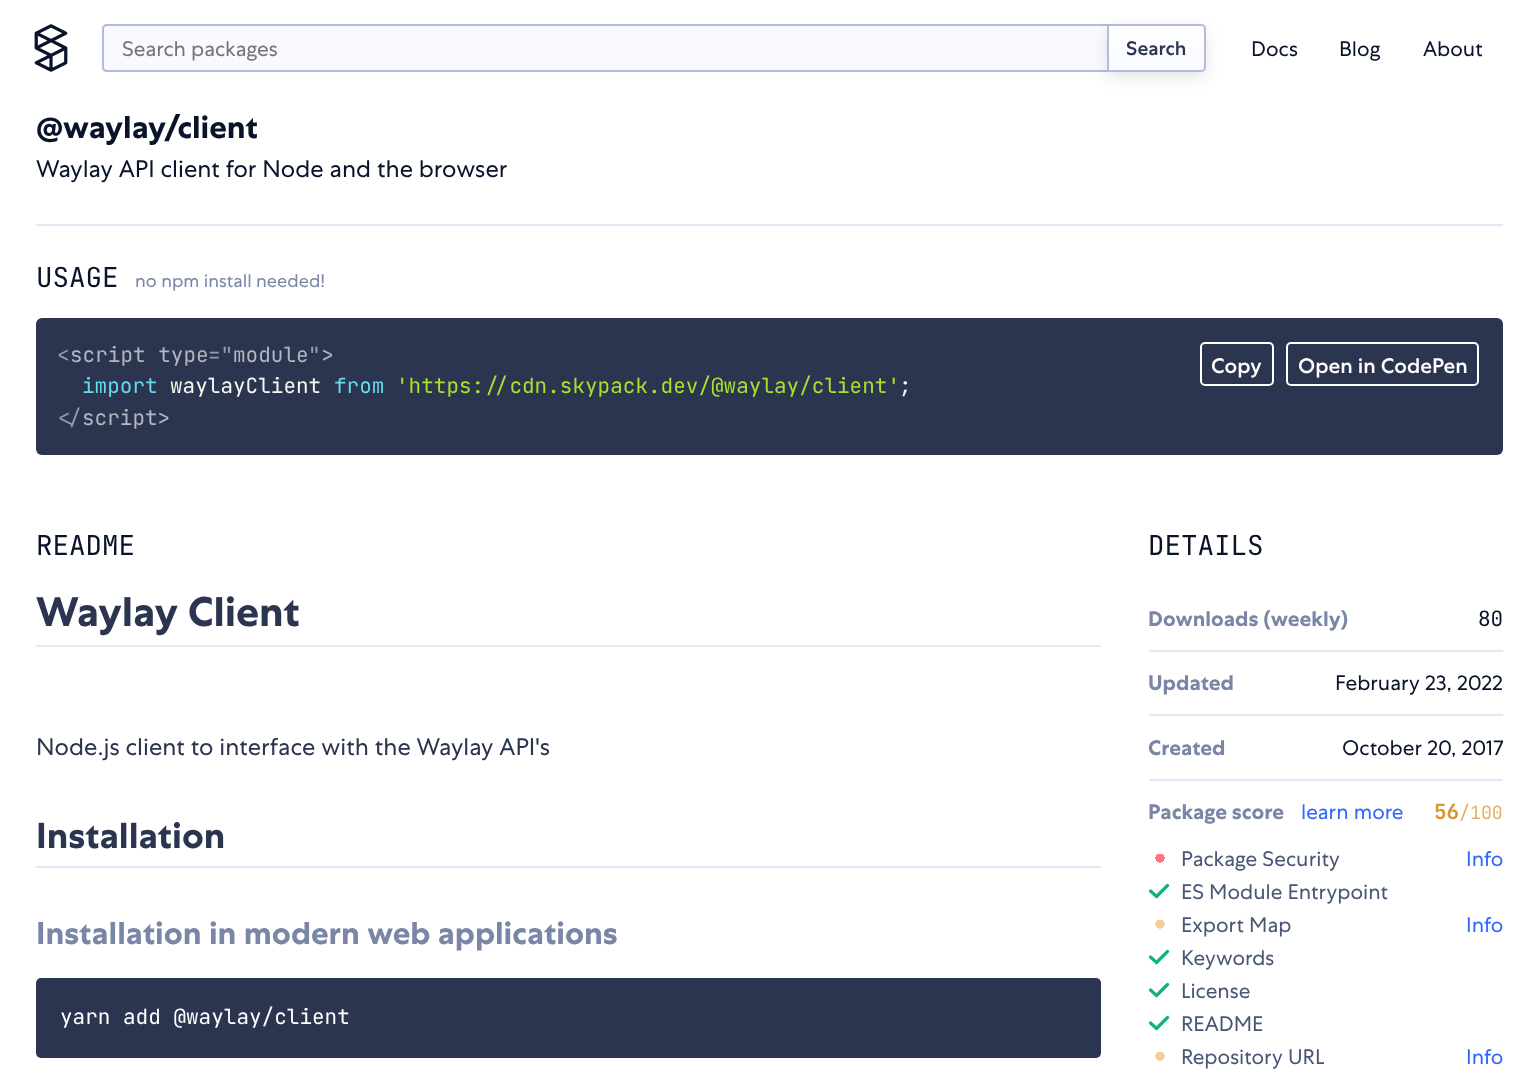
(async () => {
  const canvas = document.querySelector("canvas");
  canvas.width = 1538;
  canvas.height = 1073;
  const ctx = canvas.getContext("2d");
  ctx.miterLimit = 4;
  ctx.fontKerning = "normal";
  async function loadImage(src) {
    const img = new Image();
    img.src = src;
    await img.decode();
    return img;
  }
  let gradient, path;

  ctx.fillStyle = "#ffffff";
  ctx.fillRect(0, 0, 1538, 1073);
  ctx.drawImage(await loadImage("img/1.png"), 34, 24, 34, 48);
  ctx.fillStyle = "#f9faff";
  ctx.beginPath();
  ctx.roundRect(102, 24, 1005, 48, [5, 0, 0, 5]);
  ctx.fill();
  ctx.fillStyle = "#b2bcda";
  path = new Path2D("M107 24H1107V72H107C104 72 102 70 102 67V29C102 26 104 24 107 24ZM107 26H1107V70H107C105 70 104 69 104 67V29C104 27 105 26 107 26Z");
  ctx.fill(path, "evenodd");
  ctx.fillStyle = "rgba(0, 0, 0, 0.1)";
  ctx.filter = "blur(7.5px)";
  ctx.beginPath();
  ctx.roundRect(1107, 29, 99, 48, 5);
  ctx.fill();
  ctx.filter = "none";
  gradient = ctx.createLinearGradient(1157, 24, 1157, 72);
  gradient.addColorStop(0, "#ffffff");
  gradient.addColorStop(1, "#f9faff");
  ctx.fillStyle = gradient;
  ctx.beginPath();
  ctx.roundRect(1108, 25, 97, 46, [0, 4, 4, 0]);
  ctx.fill();
  ctx.strokeStyle = "#b2bcda";
  ctx.lineWidth = 2;
  ctx.stroke();
  ctx.fillStyle = "#e3e8f8";
  ctx.fillRect(36, 224, 1467, 2);
  ctx.fillStyle = "#2b354f";
  ctx.beginPath();
  ctx.roundRect(36, 318, 1467, 137, 6);
  ctx.fill();
  ctx.beginPath();
  ctx.roundRect(1201, 343, 72, 42, 4);
  ctx.strokeStyle = "#ffffff";
  ctx.stroke();
  ctx.beginPath();
  ctx.roundRect(1287, 343, 191, 42, 4);
  ctx.stroke();
  ctx.fillStyle = "#e3e8f8";
  ctx.fillRect(36, 645, 1065, 2);
  ctx.fillRect(36, 866, 1065, 2);
  ctx.fillStyle = "#2b354f";
  ctx.beginPath();
  ctx.roundRect(36, 978, 1065, 80, 5);
  ctx.fill();
  for (const [x, y, w, h, color] of [
    [1149, 650, 354, 2, "#e3e8f8"],
    [1149, 714, 354, 2, "#e3e8f8"],
    [1149, 779, 354, 2, "#e3e8f8"],
  ]) {
    ctx.fillStyle = color;
    ctx.fillRect(x, y, w, h);
  }
  gradient = ctx.createRadialGradient(1160, 858, 0, 1160, 858, 7.4);
  gradient.addColorStop(0.62, "#ff7585");
  gradient.addColorStop(0.62, "#ffffff");
  ctx.fillStyle = gradient;
  ctx.fillRect(1155, 854, 10, 9);
  path = new Path2D("M1150.5 891L1156.5 896.5L1167.5 885.5");
  ctx.strokeStyle = "#14b081";
  ctx.lineWidth = 3.2;
  ctx.lineCap = "round";
  ctx.lineJoin = "round";
  ctx.stroke(path);
  gradient = ctx.createRadialGradient(1160, 924, 0, 1160, 924, 7.4);
  gradient.addColorStop(0.62, "#f4cd92");
  gradient.addColorStop(0.62, "#ffffff");
  ctx.fillStyle = gradient;
  ctx.fillRect(1155, 920, 10, 9);
  path = new Path2D("M1150.5 957L1156.5 962.5L1167.5 951.5M1150.5 990L1156.5 995.5L1167.5 984.5");
  ctx.stroke(path);
  path = new Path2D("M1150.5 1023L1156.5 1028.5L1167.5 1017.5");
  ctx.stroke(path);
  gradient = ctx.createRadialGradient(1160, 1056, 0, 1160, 1056, 7.4);
  gradient.addColorStop(0.62, "#f4cd92");
  gradient.addColorStop(0.62, "#ffffff");
  ctx.fillStyle = gradient;
  ctx.fillRect(1155, 1052, 10, 9);
  ctx.font = "21px 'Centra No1'";
  ctx.fillStyle = "#757575";
  ctx.fillText("Search packages", 122, 56);
  ctx.font = "500 19.5px 'Centra No1'";
  ctx.fillStyle = "#2b354f";
  ctx.fillText("Search", 1126, 55);
  ctx.font = "21px 'Centra No1'";
  ctx.fillStyle = "#09132b";
  for (const [text, x, y] of [
    ["Docs", 1251, 56],
    ["Blog", 1339, 56],
    ["About", 1423, 56],
  ]) {
    ctx.fillText(text, x, y);
  }
  ctx.font = "bold 31.5px 'Centra No1'";
  ctx.fillText("@waylay/client", 36, 138);
  ctx.font = "24px 'Centra No1'";
  ctx.fillText("Waylay API client for Node and the browser", 36, 177);
  ctx.font = "27.5px JetBrains Mono";
  ctx.fillText("USAGE", 36, 287);
  ctx.font = "18.25px 'Centra No1'";
  ctx.fillStyle = "#7986a5";
  ctx.fillText("no npm install needed!", 135, 287);
  ctx.font = "21px JetBrains Mono";
  ctx.fillStyle = "#b3b6c0";
  ctx.fillText("script type", 70, 362);
  ctx.fillStyle = "#989ca9";
  ctx.fillText("=\"", 208, 362);
  ctx.fillStyle = "#b3b6c0";
  ctx.fillText("module >", 233, 362);
  ctx.fillStyle = "#989ca9";
  ctx.fillText("<", 57, 362);
  ctx.fillText("\"", 308, 362);
  ctx.fillStyle = "#66d9ef";
  ctx.fillText("import", 82, 393);
  ctx.fillStyle = "#f8f8f2";
  ctx.fillText("waylayClient", 170, 393);
  ctx.fillStyle = "#66d9ef";
  ctx.fillText("from", 334, 393);
  ctx.fillStyle = "#a6e22e";
  ctx.fillText("'https://cdn.skypack.dev/@waylay/client'", 396, 393);
  ctx.fillStyle = "#f8f8f2";
  ctx.fillText(";", 899, 393);
  ctx.fillStyle = "#989ca9";
  ctx.fillText("<\/", 57, 425);
  ctx.fillStyle = "#b3b6c0";
  ctx.fillText("script>", 82, 425);
  ctx.font = "500 21px 'Centra No1'";
  ctx.fillStyle = "#ffffff";
  ctx.fillText("Copy", 1211, 373);
  ctx.fillText("Open in CodePen", 1298, 373);
  ctx.font = "27.5px JetBrains Mono";
  ctx.fillStyle = "#09132b";
  ctx.fillText("README", 36, 555);
  ctx.font = "bold 41.25px 'Centra No1'";
  ctx.fillStyle = "#2b354f";
  ctx.fillText("Waylay Client", 36, 626);
  ctx.font = "24px 'Centra No1'";
  ctx.fillText("Node.js client to interface with the Waylay API's", 36, 755);
  ctx.font = "bold 36px 'Centra No1'";
  ctx.fillText("Installation", 36, 848);
  ctx.font = "bold 31.5px 'Centra No1'";
  ctx.fillStyle = "#7986a5";
  ctx.fillText("Installation in modern web applications", 36, 944);
  ctx.font = "21px JetBrains Mono";
  ctx.fillStyle = "#ffffff";
  ctx.fillText("yarn add @waylay/client", 60, 1024);
  ctx.font = "27.5px JetBrains Mono";
  ctx.fillStyle = "#09132b";
  ctx.fillText("DETAILS", 1148, 555);
  ctx.font = "bold 21px 'Centra No1'";
  ctx.fillStyle = "#7986a5";
  ctx.fillText("Downloads (weekly)", 1148, 626);
  ctx.font = "21px JetBrains Mono";
  ctx.fillStyle = "#09132b";
  ctx.fillText("80", 1478, 626);
  ctx.font = "bold 21px 'Centra No1'";
  ctx.fillStyle = "#7986a5";
  ctx.fillText("Updated", 1148, 690);
  ctx.font = "21px 'Centra No1'";
  ctx.fillStyle = "#09132b";
  ctx.fillText("February 23, 2022", 1335, 690);
  ctx.font = "bold 21px 'Centra No1'";
  ctx.fillStyle = "#7986a5";
  ctx.fillText("Created", 1148, 755);
  ctx.font = "21px 'Centra No1'";
  ctx.fillStyle = "#09132b";
  ctx.fillText("October 20, 2017", 1342, 755);
  ctx.font = "bold 21px 'Centra No1'";
  ctx.fillStyle = "#7986a5";
  ctx.fillText("Package score", 1148, 819);
  ctx.font = "21px 'Centra No1'";
  ctx.fillStyle = "#3167ff";
  ctx.fillText("learn more", 1301, 819);
  ctx.font = "bold 21px JetBrains Mono";
  ctx.fillStyle = "#d89530";
  ctx.fillText("56", 1434, 819);
  ctx.font = "18.25px JetBrains Mono";
  ctx.fillStyle = "#e2b064";
  ctx.fillText("/100", 1459, 819);
  ctx.font = "21px 'Centra No1'";
  ctx.fillStyle = "#495675";
  ctx.fillText("Package Security", 1181, 866);
  ctx.fillStyle = "#3167ff";
  ctx.fillText("Info", 1466, 866);
  ctx.fillStyle = "#495675";
  ctx.fillText("ES Module Entrypoint", 1181, 899);
  ctx.fillText("Export Map", 1181, 932);
  ctx.fillStyle = "#3167ff";
  ctx.fillText("Info", 1466, 932);
  ctx.fillStyle = "#495675";
  for (const [text, x, y] of [
    ["Keywords", 1181, 965],
    ["License", 1181, 998],
    ["README", 1181, 1031],
    ["Repository URL", 1181, 1064],
  ]) {
    ctx.fillText(text, x, y);
  }
  ctx.fillStyle = "#3167ff";
  ctx.fillText("Info", 1466, 1064);
})();
